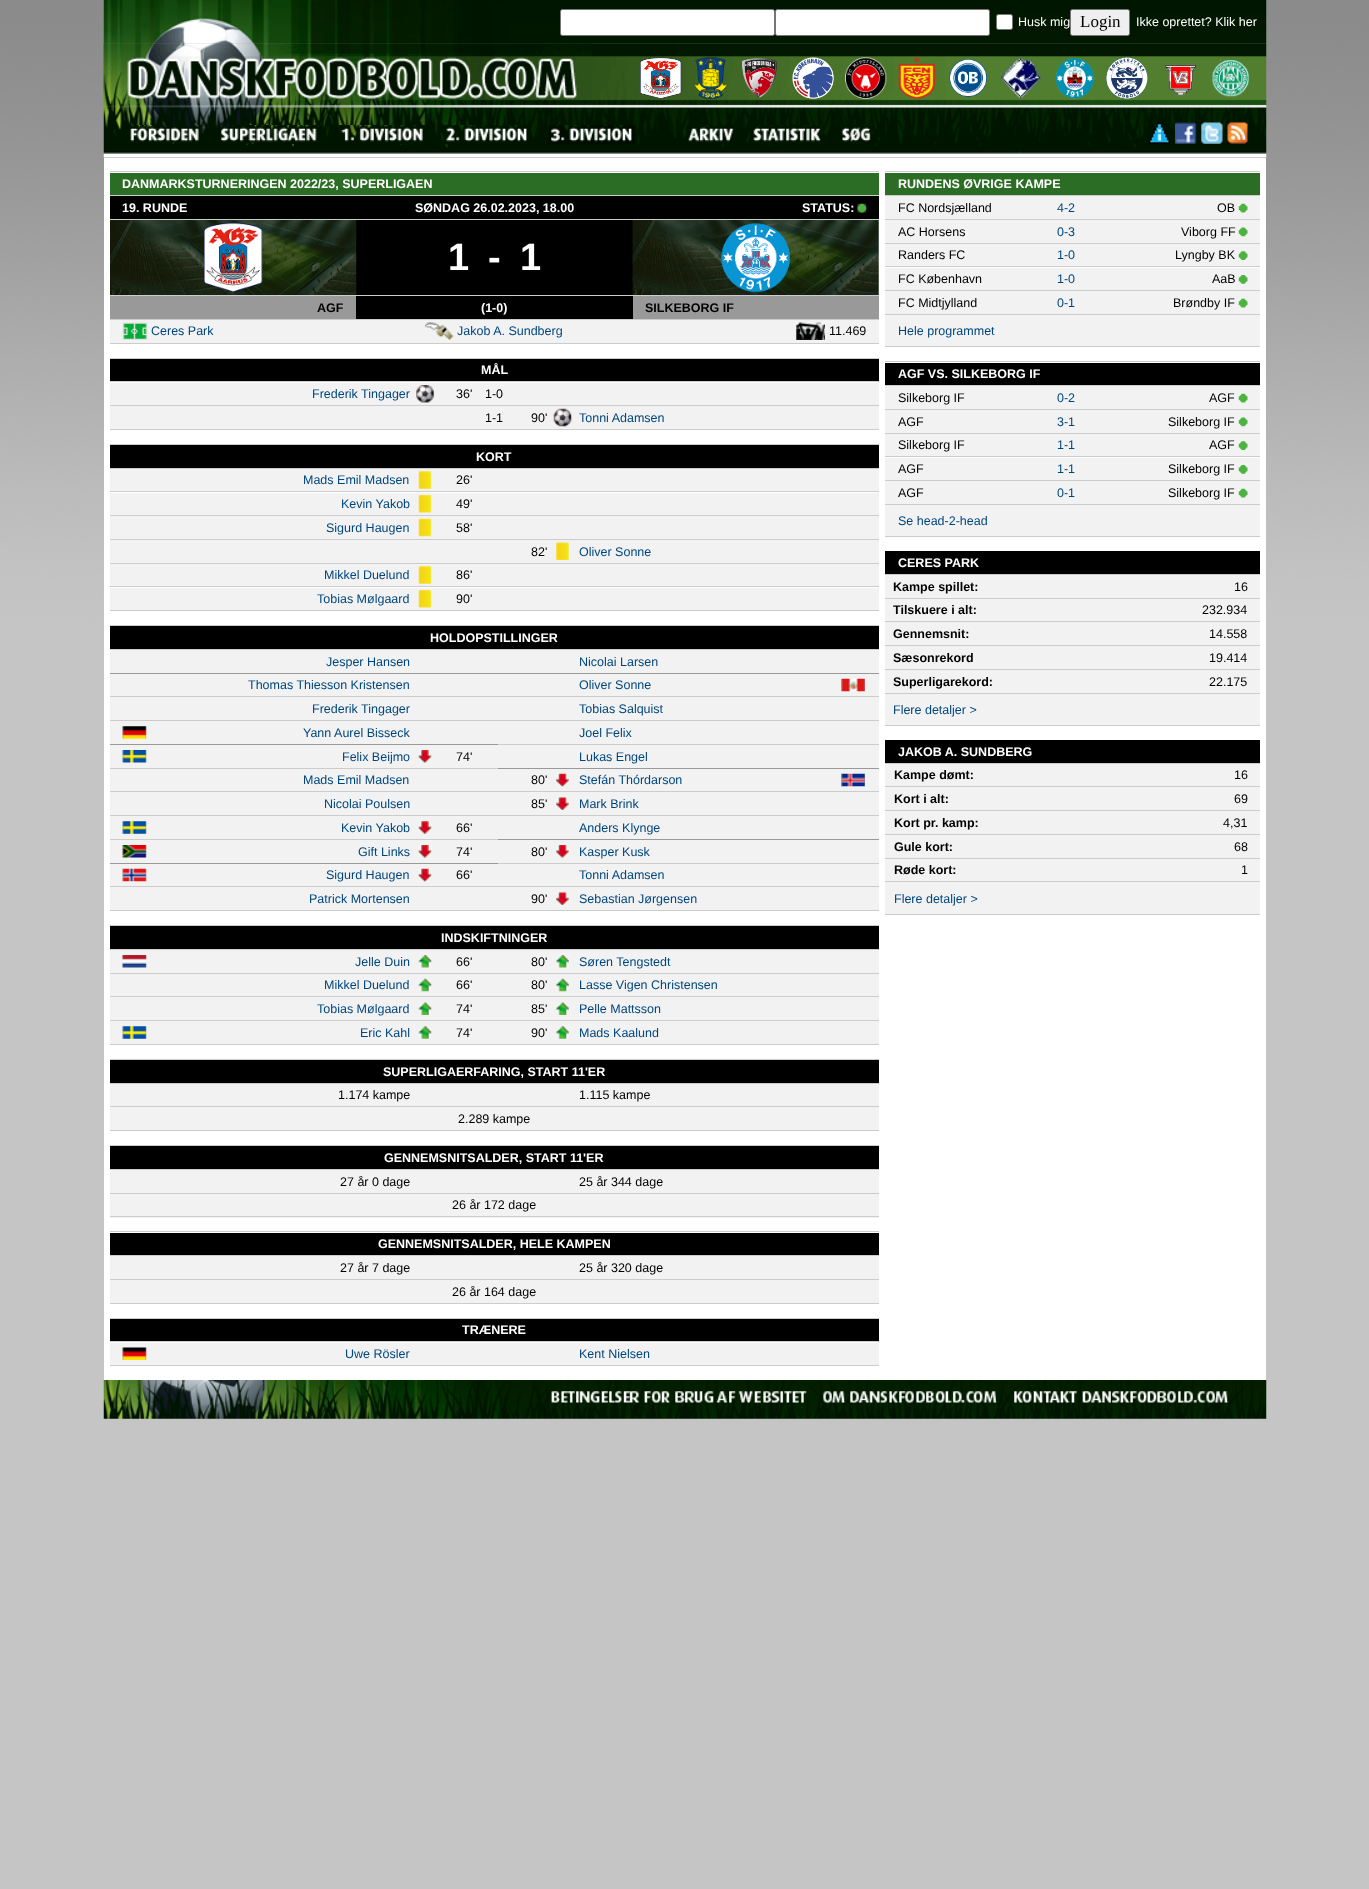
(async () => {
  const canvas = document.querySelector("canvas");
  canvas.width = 1369;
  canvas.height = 1889;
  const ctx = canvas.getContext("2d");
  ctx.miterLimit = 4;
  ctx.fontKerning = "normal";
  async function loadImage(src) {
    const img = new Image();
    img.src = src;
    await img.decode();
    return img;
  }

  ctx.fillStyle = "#ffffff";
  ctx.fillRect(0, 0, 1369, 1889);
  ctx.drawImage(await loadImage("img/1.png"), 0, 0, 1369, 1889);
  ctx.drawImage(await loadImage("img/2.png"), 103, 0, 1164, 44);
  ctx.beginPath();
  ctx.roundRect(560.5, 9.5, 214, 26, 2);
  ctx.fill();
  ctx.strokeStyle = "#767676";
  ctx.stroke();
  ctx.beginPath();
  ctx.roundRect(775.5, 9.5, 214, 26, 2);
  ctx.fill();
  ctx.stroke();
  ctx.beginPath();
  ctx.roundRect(996.5, 14.5, 16, 15, 2);
  ctx.fill();
  ctx.stroke();
  ctx.fillStyle = "#efefef";
  ctx.beginPath();
  ctx.roundRect(1070.5, 9.5, 59, 26, 2);
  ctx.fill();
  ctx.stroke();
  ctx.drawImage(await loadImage("img/3.png"), 103, 43, 1164, 64);
  ctx.drawImage(await loadImage("img/17.png"), 103, 106, 1164, 52);
  ctx.drawImage(await loadImage("img/4.png"), 103, 43, 489, 64);
  ctx.drawImage(await loadImage("img/5.png"), 640, 57, 42, 42);
  ctx.drawImage(await loadImage("img/6.png"), 694, 57, 34, 42);
  ctx.drawImage(await loadImage("img/7.png"), 742, 58, 35, 40);
  ctx.drawImage(await loadImage("img/8.png"), 792, 57, 42, 42);
  ctx.drawImage(await loadImage("img/9.png"), 845, 57, 42, 42);
  ctx.drawImage(await loadImage("img/10.png"), 898, 57, 37, 42);
  ctx.drawImage(await loadImage("img/11.png"), 949, 59, 38, 38);
  ctx.drawImage(await loadImage("img/12.png"), 1000, 57, 42, 42);
  ctx.drawImage(await loadImage("img/13.png"), 1055, 58, 40, 41);
  ctx.drawImage(await loadImage("img/14.png"), 1106, 57, 42, 42);
  ctx.drawImage(await loadImage("img/15.png"), 1165, 64, 32, 32);
  ctx.drawImage(await loadImage("img/16.png"), 1212, 60, 37, 37);
  ctx.drawImage(await loadImage("img/18.png"), 130, 125, 72, 19);
  ctx.drawImage(await loadImage("img/19.png"), 220, 125, 99, 19);
  ctx.drawImage(await loadImage("img/20.png"), 338, 125, 87, 19);
  ctx.drawImage(await loadImage("img/21.png"), 443, 125, 86, 19);
  ctx.drawImage(await loadImage("img/22.png"), 548, 125, 87, 19);
  ctx.drawImage(await loadImage("img/23.png"), 686, 125, 50, 19);
  ctx.drawImage(await loadImage("img/24.png"), 753, 125, 70, 19);
  ctx.drawImage(await loadImage("img/25.png"), 842, 125, 31, 17);
  ctx.drawImage(await loadImage("img/26.png"), 1148, 122, 22, 22);
  ctx.drawImage(await loadImage("img/27.png"), 1175, 122, 22, 22);
  ctx.drawImage(await loadImage("img/28.png"), 1201, 122, 22, 22);
  ctx.drawImage(await loadImage("img/29.png"), 1227, 122, 21, 22);
  for (const [x, y, w, h, color] of [
    [104, 158, 1162, 1222, "#ffffff"],
    [110, 171, 769, 1, "#cccccc"],
    [110, 173, 769, 22, "#2b6d24"],
    [110, 195, 769, 1, "#cccccc"],
    [110, 196, 769, 23, "#000000"],
  ]) {
    ctx.fillStyle = color;
    ctx.fillRect(x, y, w, h);
  }
  ctx.drawImage(await loadImage("img/30.png"), 857, 203, 10, 10);
  ctx.fillStyle = "#cccccc";
  ctx.fillRect(110, 219, 769, 1);
  ctx.fillStyle = "#000000";
  ctx.fillRect(356, 220, 277, 75);
  ctx.drawImage(await loadImage("img/31.png"), 110, 220, 247, 75);
  ctx.drawImage(await loadImage("img/32.png"), 632, 220, 247, 75);
  for (const [x, y, w, h, color] of [
    [110, 295, 769, 1, "#cccccc"],
    [110, 296, 246, 23, "#999999"],
    [356, 296, 277, 23, "#000000"],
    [633, 296, 246, 23, "#999999"],
    [110, 319, 769, 1, "#cccccc"],
    [110, 320, 769, 23, "#f2f2f2"],
  ]) {
    ctx.fillStyle = color;
    ctx.fillRect(x, y, w, h);
  }
  ctx.drawImage(await loadImage("img/33.png"), 122, 322, 26, 18);
  ctx.drawImage(await loadImage("img/34.png"), 425, 322, 29, 18);
  ctx.drawImage(await loadImage("img/35.png"), 796, 322, 29, 18);
  for (const [x, y, w, h, color] of [
    [110, 343, 769, 1, "#cccccc"],
    [110, 358, 769, 1, "#cccccc"],
    [110, 359, 769, 22, "#000000"],
    [110, 381, 769, 1, "#cccccc"],
    [110, 383, 769, 22, "#f2f2f2"],
  ]) {
    ctx.fillStyle = color;
    ctx.fillRect(x, y, w, h);
  }
  ctx.drawImage(await loadImage("img/36.png"), 416, 385, 18, 18);
  ctx.fillStyle = "#cccccc";
  ctx.fillRect(110, 405, 769, 1);
  ctx.fillStyle = "#f2f2f2";
  ctx.fillRect(110, 406, 769, 23);
  ctx.drawImage(await loadImage("img/37.png"), 553, 408, 19, 19);
  for (const [x, y, w, h, color] of [
    [110, 429, 769, 1, "#cccccc"],
    [110, 444, 769, 1, "#cccccc"],
    [110, 445, 769, 23, "#000000"],
    [110, 468, 769, 1, "#cccccc"],
    [110, 469, 769, 22, "#f2f2f2"],
  ]) {
    ctx.fillStyle = color;
    ctx.fillRect(x, y, w, h);
  }
  ctx.drawImage(await loadImage("img/38.png"), 418, 471, 14, 18);
  ctx.fillStyle = "#cccccc";
  ctx.fillRect(110, 491, 769, 1);
  ctx.fillStyle = "#f2f2f2";
  ctx.fillRect(110, 493, 769, 22);
  ctx.drawImage(await loadImage("img/39.png"), 418, 495, 14, 18);
  ctx.fillStyle = "#cccccc";
  ctx.fillRect(110, 515, 769, 1);
  ctx.fillStyle = "#f2f2f2";
  ctx.fillRect(110, 516, 769, 23);
  ctx.drawImage(await loadImage("img/40.png"), 418, 518, 14, 19);
  ctx.fillStyle = "#cccccc";
  ctx.fillRect(110, 539, 769, 1);
  ctx.fillStyle = "#f2f2f2";
  ctx.fillRect(110, 540, 769, 23);
  ctx.drawImage(await loadImage("img/41.png"), 556, 542, 13, 18);
  ctx.fillStyle = "#cccccc";
  ctx.fillRect(110, 563, 769, 1);
  ctx.fillStyle = "#f2f2f2";
  ctx.fillRect(110, 564, 769, 22);
  ctx.drawImage(await loadImage("img/38.png"), 418, 566, 14, 18);
  ctx.fillStyle = "#cccccc";
  ctx.fillRect(110, 586, 769, 1);
  ctx.fillStyle = "#f2f2f2";
  ctx.fillRect(110, 588, 769, 22);
  ctx.drawImage(await loadImage("img/39.png"), 418, 590, 14, 18);
  for (const [x, y, w, h, color] of [
    [110, 610, 769, 1, "#cccccc"],
    [110, 625, 769, 1, "#cccccc"],
    [110, 626, 769, 23, "#000000"],
    [110, 649, 769, 1, "#cccccc"],
    [110, 650, 769, 260, "#f2f2f2"],
    [110, 673, 769, 1, "#999999"],
    [110, 696, 769, 1, "#cccccc"],
    [110, 720, 769, 1, "#cccccc"],
  ]) {
    ctx.fillStyle = color;
    ctx.fillRect(x, y, w, h);
  }
  ctx.drawImage(await loadImage("img/42.png"), 122, 726, 25, 13);
  ctx.fillStyle = "#999999";
  ctx.fillRect(110, 744, 388, 1);
  ctx.drawImage(await loadImage("img/43.png"), 122, 750, 25, 13);
  ctx.drawImage(await loadImage("img/44.png"), 418, 750, 14, 13);
  for (const [x, y, w, h, color] of [
    [110, 768, 388, 1, "#cccccc"],
    [110, 791, 769, 1, "#cccccc"],
    [110, 815, 769, 1, "#cccccc"],
  ]) {
    ctx.fillStyle = color;
    ctx.fillRect(x, y, w, h);
  }
  ctx.drawImage(await loadImage("img/45.png"), 122, 821, 25, 13);
  ctx.drawImage(await loadImage("img/46.png"), 418, 821, 14, 13);
  ctx.fillRect(110, 839, 388, 1);
  ctx.drawImage(await loadImage("img/47.png"), 122, 845, 25, 13);
  ctx.drawImage(await loadImage("img/44.png"), 418, 845, 14, 13);
  ctx.fillStyle = "#999999";
  ctx.fillRect(110, 863, 388, 1);
  ctx.drawImage(await loadImage("img/48.png"), 122, 868, 25, 14);
  ctx.drawImage(await loadImage("img/49.png"), 418, 868, 14, 14);
  ctx.fillStyle = "#cccccc";
  ctx.fillRect(110, 886, 769, 1);
  ctx.fillRect(110, 910, 769, 1);
  ctx.drawImage(await loadImage("img/50.png"), 841, 678, 24, 14);
  ctx.fillRect(498, 744, 381, 1);
  ctx.fillStyle = "#999999";
  ctx.fillRect(498, 768, 381, 1);
  ctx.drawImage(await loadImage("img/51.png"), 556, 773, 13, 14);
  ctx.drawImage(await loadImage("img/52.png"), 841, 773, 24, 14);
  ctx.drawImage(await loadImage("img/53.png"), 556, 797, 13, 13);
  ctx.fillRect(498, 839, 381, 1);
  ctx.drawImage(await loadImage("img/54.png"), 556, 845, 13, 13);
  ctx.fillStyle = "#cccccc";
  ctx.fillRect(498, 863, 381, 1);
  ctx.drawImage(await loadImage("img/53.png"), 556, 892, 13, 13);
  for (const [x, y, w, h, color] of [
    [110, 925, 769, 1, "#cccccc"],
    [110, 926, 769, 23, "#000000"],
    [110, 949, 769, 1, "#cccccc"],
    [110, 950, 769, 94, "#f2f2f2"],
  ]) {
    ctx.fillStyle = color;
    ctx.fillRect(x, y, w, h);
  }
  ctx.drawImage(await loadImage("img/55.png"), 122, 955, 25, 13);
  ctx.drawImage(await loadImage("img/56.png"), 418, 955, 14, 13);
  ctx.fillStyle = "#cccccc";
  ctx.fillRect(110, 973, 769, 1);
  ctx.drawImage(await loadImage("img/57.png"), 418, 978, 14, 14);
  ctx.fillRect(110, 996, 769, 1);
  ctx.drawImage(await loadImage("img/58.png"), 418, 1002, 14, 13);
  ctx.fillRect(110, 1020, 769, 1);
  ctx.drawImage(await loadImage("img/45.png"), 122, 1026, 25, 13);
  ctx.drawImage(await loadImage("img/59.png"), 418, 1026, 14, 13);
  ctx.fillRect(110, 1044, 769, 1);
  ctx.drawImage(await loadImage("img/60.png"), 556, 955, 13, 13);
  ctx.drawImage(await loadImage("img/61.png"), 556, 978, 13, 14);
  ctx.drawImage(await loadImage("img/62.png"), 556, 1002, 13, 13);
  ctx.drawImage(await loadImage("img/63.png"), 556, 1026, 13, 13);
  for (const [x, y, w, h, color] of [
    [110, 1059, 769, 1, "#cccccc"],
    [110, 1060, 769, 23, "#000000"],
    [110, 1083, 769, 1, "#cccccc"],
    [110, 1084, 769, 46, "#f2f2f2"],
    [110, 1106, 769, 1, "#cccccc"],
    [110, 1130, 769, 1, "#cccccc"],
    [110, 1145, 769, 1, "#cccccc"],
    [110, 1146, 769, 23, "#000000"],
    [110, 1169, 769, 1, "#cccccc"],
    [110, 1170, 769, 48, "#f2f2f2"],
    [110, 1193, 769, 1, "#cccccc"],
    [110, 1216, 769, 1, "#cccccc"],
    [110, 1231, 769, 1, "#cccccc"],
    [110, 1233, 769, 22, "#000000"],
    [110, 1255, 769, 1, "#cccccc"],
    [110, 1256, 769, 47, "#f2f2f2"],
    [110, 1279, 769, 1, "#cccccc"],
    [110, 1303, 769, 1, "#cccccc"],
    [110, 1318, 769, 1, "#cccccc"],
    [110, 1319, 769, 22, "#000000"],
    [110, 1341, 769, 1, "#cccccc"],
    [110, 1343, 769, 22, "#f2f2f2"],
  ]) {
    ctx.fillStyle = color;
    ctx.fillRect(x, y, w, h);
  }
  ctx.drawImage(await loadImage("img/64.png"), 122, 1347, 25, 13);
  for (const [x, y, w, h, color] of [
    [110, 1365, 769, 1, "#cccccc"],
    [885, 171, 375, 1, "#cccccc"],
    [885, 173, 375, 22, "#2b6d24"],
    [885, 195, 375, 1, "#cccccc"],
    [885, 196, 375, 23, "#f2f2f2"],
  ]) {
    ctx.fillStyle = color;
    ctx.fillRect(x, y, w, h);
  }
  ctx.drawImage(await loadImage("img/65.png"), 1238, 203, 10, 10);
  ctx.fillStyle = "#cccccc";
  ctx.fillRect(885, 219, 375, 1);
  ctx.fillStyle = "#f2f2f2";
  ctx.fillRect(885, 220, 375, 23);
  ctx.drawImage(await loadImage("img/66.png"), 1238, 227, 10, 10);
  ctx.fillStyle = "#cccccc";
  ctx.fillRect(885, 243, 375, 1);
  ctx.fillStyle = "#f2f2f2";
  ctx.fillRect(885, 244, 375, 22);
  ctx.drawImage(await loadImage("img/67.png"), 1238, 251, 10, 9);
  ctx.fillStyle = "#cccccc";
  ctx.fillRect(885, 266, 375, 1);
  ctx.fillStyle = "#f2f2f2";
  ctx.fillRect(885, 268, 375, 22);
  ctx.drawImage(await loadImage("img/68.png"), 1238, 275, 10, 9);
  ctx.fillStyle = "#cccccc";
  ctx.fillRect(885, 290, 375, 1);
  ctx.fillStyle = "#f2f2f2";
  ctx.fillRect(885, 291, 375, 23);
  ctx.drawImage(await loadImage("img/65.png"), 1238, 298, 10, 10);
  for (const [x, y, w, h, color] of [
    [885, 314, 375, 1, "#cccccc"],
    [885, 315, 375, 31, "#f2f2f2"],
    [885, 346, 375, 1, "#cccccc"],
    [885, 361, 375, 1, "#cccccc"],
    [885, 363, 375, 22, "#000000"],
    [885, 385, 375, 1, "#cccccc"],
    [885, 386, 375, 23, "#f2f2f2"],
  ]) {
    ctx.fillStyle = color;
    ctx.fillRect(x, y, w, h);
  }
  ctx.drawImage(await loadImage("img/65.png"), 1238, 393, 10, 10);
  ctx.fillStyle = "#cccccc";
  ctx.fillRect(885, 409, 375, 1);
  ctx.fillStyle = "#f2f2f2";
  ctx.fillRect(885, 410, 375, 23);
  ctx.drawImage(await loadImage("img/66.png"), 1238, 417, 10, 10);
  ctx.fillStyle = "#cccccc";
  ctx.fillRect(885, 433, 375, 1);
  ctx.fillStyle = "#f2f2f2";
  ctx.fillRect(885, 434, 375, 22);
  ctx.drawImage(await loadImage("img/67.png"), 1238, 441, 10, 9);
  ctx.fillStyle = "#cccccc";
  ctx.fillRect(885, 456, 375, 1);
  ctx.fillStyle = "#f2f2f2";
  ctx.fillRect(885, 458, 375, 22);
  ctx.drawImage(await loadImage("img/68.png"), 1238, 465, 10, 9);
  ctx.fillStyle = "#cccccc";
  ctx.fillRect(885, 480, 375, 1);
  ctx.fillStyle = "#f2f2f2";
  ctx.fillRect(885, 481, 375, 23);
  ctx.drawImage(await loadImage("img/65.png"), 1238, 488, 10, 10);
  for (const [x, y, w, h, color] of [
    [885, 504, 375, 1, "#cccccc"],
    [885, 505, 375, 31, "#f2f2f2"],
    [885, 536, 375, 1, "#cccccc"],
    [885, 551, 375, 23, "#000000"],
    [885, 574, 375, 1, "#cccccc"],
    [885, 575, 375, 150, "#f2f2f2"],
    [885, 598, 375, 1, "#cccccc"],
    [885, 621, 375, 1, "#cccccc"],
    [885, 645, 375, 1, "#cccccc"],
    [885, 669, 375, 1, "#cccccc"],
    [885, 693, 375, 1, "#cccccc"],
    [885, 725, 375, 1, "#cccccc"],
    [885, 740, 375, 23, "#000000"],
    [885, 763, 375, 1, "#cccccc"],
    [885, 764, 375, 150, "#f2f2f2"],
    [885, 786, 375, 1, "#cccccc"],
    [885, 810, 375, 1, "#cccccc"],
    [885, 834, 375, 1, "#cccccc"],
    [885, 858, 375, 1, "#cccccc"],
    [885, 881, 375, 1, "#cccccc"],
    [885, 914, 375, 1, "#cccccc"],
  ]) {
    ctx.fillStyle = color;
    ctx.fillRect(x, y, w, h);
  }
  ctx.drawImage(await loadImage("img/69.png"), 103, 1380, 1164, 39);
  ctx.font = "12.5px Liberation Sans";
  ctx.fillStyle = "#ffffff";
  ctx.fillText("Husk mig", 1018, 26);
  ctx.font = "17px Liberation Serif";
  ctx.fillStyle = "#000000";
  ctx.fillText("Login", 1080, 27);
  ctx.font = "12.5px Liberation Sans";
  ctx.fillStyle = "#ffffff";
  ctx.fillText("Ikke oprettet? Klik her", 1136, 26);
  ctx.font = "bold 12.5px Liberation Sans";
  for (const [text, x, y] of [
    ["DANMARKSTURNERINGEN 2022/23, SUPERLIGAEN", 122, 188],
    ["19. RUNDE", 122, 212],
    ["SØNDAG 26.02.2023, 18.00", 415, 212],
    ["STATUS:", 802, 212],
  ]) {
    ctx.fillText(text, x, y);
  }
  ctx.font = "bold 38px Liberation Sans";
  for (const [text, x, y] of [
    ["1", 448, 270],
    ["-", 488, 270],
    ["1", 520, 270],
  ]) {
    ctx.fillText(text, x, y);
  }
  ctx.font = "bold 12.5px Liberation Sans";
  ctx.fillStyle = "#000000";
  ctx.fillText("AGF", 317, 312);
  ctx.fillStyle = "#ffffff";
  ctx.fillText("(1-0)", 481, 312);
  ctx.fillStyle = "#000000";
  ctx.fillText("SILKEBORG IF", 645, 312);
  ctx.font = "12.5px Liberation Sans";
  ctx.fillStyle = "#00467e";
  ctx.fillText("Ceres Park", 151, 335);
  ctx.fillText("Jakob A. Sundberg", 457, 335);
  ctx.fillStyle = "#000000";
  ctx.fillText("11.469", 829, 335);
  ctx.font = "bold 12.5px Liberation Sans";
  ctx.fillStyle = "#ffffff";
  ctx.fillText("MÅL", 481, 374);
  ctx.font = "12.5px Liberation Sans";
  ctx.fillStyle = "#00467e";
  ctx.fillText("Frederik Tingager", 312, 398);
  ctx.fillStyle = "#000000";
  for (const [text, x, y] of [
    ["36'", 456, 398],
    ["1-0", 485, 398],
    ["1-1", 485, 422],
    ["90'", 531, 422],
  ]) {
    ctx.fillText(text, x, y);
  }
  ctx.fillStyle = "#00467e";
  ctx.fillText("Tonni Adamsen", 579, 422);
  ctx.font = "bold 12.5px Liberation Sans";
  ctx.fillStyle = "#ffffff";
  ctx.fillText("KORT", 476, 461);
  ctx.font = "12.5px Liberation Sans";
  ctx.fillStyle = "#00467e";
  ctx.fillText("Mads Emil Madsen", 303, 484);
  ctx.fillStyle = "#000000";
  ctx.fillText("26'", 456, 484);
  ctx.fillStyle = "#00467e";
  ctx.fillText("Kevin Yakob", 341, 508);
  ctx.fillStyle = "#000000";
  ctx.fillText("49'", 456, 508);
  ctx.fillStyle = "#00467e";
  ctx.fillText("Sigurd Haugen", 326, 532);
  ctx.fillStyle = "#000000";
  ctx.fillText("58'", 456, 532);
  ctx.fillText("82'", 531, 556);
  ctx.fillStyle = "#00467e";
  ctx.fillText("Oliver Sonne", 579, 556);
  ctx.fillText("Mikkel Duelund", 324, 579);
  ctx.fillStyle = "#000000";
  ctx.fillText("86'", 456, 579);
  ctx.fillStyle = "#00467e";
  ctx.fillText("Tobias Mølgaard", 317, 603);
  ctx.fillStyle = "#000000";
  ctx.fillText("90'", 456, 603);
  ctx.font = "bold 12.5px Liberation Sans";
  ctx.fillStyle = "#ffffff";
  ctx.fillText("HOLDOPSTILLINGER", 430, 642);
  ctx.font = "12.5px Liberation Sans";
  ctx.fillStyle = "#00467e";
  for (const [text, x, y] of [
    ["Jesper Hansen", 326, 666],
    ["Thomas Thiesson Kristensen", 248, 689],
    ["Frederik Tingager", 312, 713],
    ["Yann Aurel Bisseck", 303, 737],
    ["Felix Beijmo", 342, 761],
  ]) {
    ctx.fillText(text, x, y);
  }
  ctx.fillStyle = "#000000";
  ctx.fillText("74'", 456, 761);
  ctx.fillStyle = "#00467e";
  for (const [text, x, y] of [
    ["Mads Emil Madsen", 303, 784],
    ["Nicolai Poulsen", 324, 808],
    ["Kevin Yakob", 341, 832],
  ]) {
    ctx.fillText(text, x, y);
  }
  ctx.fillStyle = "#000000";
  ctx.fillText("66'", 456, 832);
  ctx.fillStyle = "#00467e";
  ctx.fillText("Gift Links", 358, 856);
  ctx.fillStyle = "#000000";
  ctx.fillText("74'", 456, 856);
  ctx.fillStyle = "#00467e";
  ctx.fillText("Sigurd Haugen", 326, 879);
  ctx.fillStyle = "#000000";
  ctx.fillText("66'", 456, 879);
  ctx.fillStyle = "#00467e";
  for (const [text, x, y] of [
    ["Patrick Mortensen", 309, 903],
    ["Nicolai Larsen", 579, 666],
    ["Oliver Sonne", 579, 689],
    ["Tobias Salquist", 579, 713],
    ["Joel Felix", 579, 737],
    ["Lukas Engel", 579, 761],
  ]) {
    ctx.fillText(text, x, y);
  }
  ctx.fillStyle = "#000000";
  ctx.fillText("80'", 531, 784);
  ctx.fillStyle = "#00467e";
  ctx.fillText("Stefán Thórdarson", 579, 784);
  ctx.fillStyle = "#000000";
  ctx.fillText("85'", 531, 808);
  ctx.fillStyle = "#00467e";
  ctx.fillText("Mark Brink", 579, 808);
  ctx.fillText("Anders Klynge", 579, 832);
  ctx.fillStyle = "#000000";
  ctx.fillText("80'", 531, 856);
  ctx.fillStyle = "#00467e";
  ctx.fillText("Kasper Kusk", 579, 856);
  ctx.fillText("Tonni Adamsen", 579, 879);
  ctx.fillStyle = "#000000";
  ctx.fillText("90'", 531, 903);
  ctx.fillStyle = "#00467e";
  ctx.fillText("Sebastian Jørgensen", 579, 903);
  ctx.font = "bold 12.5px Liberation Sans";
  ctx.fillStyle = "#ffffff";
  ctx.fillText("INDSKIFTNINGER", 441, 942);
  ctx.font = "12.5px Liberation Sans";
  ctx.fillStyle = "#00467e";
  ctx.fillText("Jelle Duin", 355, 966);
  ctx.fillStyle = "#000000";
  ctx.fillText("66'", 456, 966);
  ctx.fillStyle = "#00467e";
  ctx.fillText("Mikkel Duelund", 324, 989);
  ctx.fillStyle = "#000000";
  ctx.fillText("66'", 456, 989);
  ctx.fillStyle = "#00467e";
  ctx.fillText("Tobias Mølgaard", 317, 1013);
  ctx.fillStyle = "#000000";
  ctx.fillText("74'", 456, 1013);
  ctx.fillStyle = "#00467e";
  ctx.fillText("Eric Kahl", 360, 1037);
  ctx.fillStyle = "#000000";
  ctx.fillText("74'", 456, 1037);
  ctx.fillText("80'", 531, 966);
  ctx.fillStyle = "#00467e";
  ctx.fillText("Søren Tengstedt", 579, 966);
  ctx.fillStyle = "#000000";
  ctx.fillText("80'", 531, 989);
  ctx.fillStyle = "#00467e";
  ctx.fillText("Lasse Vigen Christensen", 579, 989);
  ctx.fillStyle = "#000000";
  ctx.fillText("85'", 531, 1013);
  ctx.fillStyle = "#00467e";
  ctx.fillText("Pelle Mattsson", 579, 1013);
  ctx.fillStyle = "#000000";
  ctx.fillText("90'", 531, 1037);
  ctx.fillStyle = "#00467e";
  ctx.fillText("Mads Kaalund", 579, 1037);
  ctx.font = "bold 12.5px Liberation Sans";
  ctx.fillStyle = "#ffffff";
  ctx.fillText("SUPERLIGAERFARING, START 11'ER", 383, 1076);
  ctx.font = "12.5px Liberation Sans";
  ctx.fillStyle = "#000000";
  for (const [text, x, y] of [
    ["1.174 kampe", 338, 1099],
    ["1.115 kampe", 579, 1099],
    ["2.289 kampe", 458, 1123],
  ]) {
    ctx.fillText(text, x, y);
  }
  ctx.font = "bold 12.5px Liberation Sans";
  ctx.fillStyle = "#ffffff";
  ctx.fillText("GENNEMSNITSALDER, START 11'ER", 384, 1162);
  ctx.font = "12.5px Liberation Sans";
  ctx.fillStyle = "#000000";
  for (const [text, x, y] of [
    ["27 år 0 dage", 340, 1186],
    ["25 år 344 dage", 579, 1186],
    ["26 år 172 dage", 452, 1209],
  ]) {
    ctx.fillText(text, x, y);
  }
  ctx.font = "bold 12.5px Liberation Sans";
  ctx.fillStyle = "#ffffff";
  ctx.fillText("GENNEMSNITSALDER, HELE KAMPEN", 378, 1248);
  ctx.font = "12.5px Liberation Sans";
  ctx.fillStyle = "#000000";
  for (const [text, x, y] of [
    ["27 år 7 dage", 340, 1272],
    ["25 år 320 dage", 579, 1272],
    ["26 år 164 dage", 452, 1296],
  ]) {
    ctx.fillText(text, x, y);
  }
  ctx.font = "bold 12.5px Liberation Sans";
  ctx.fillStyle = "#ffffff";
  ctx.fillText("TRÆNERE", 462, 1334);
  ctx.font = "12.5px Liberation Sans";
  ctx.fillStyle = "#00467e";
  ctx.fillText("Uwe Rösler", 345, 1358);
  ctx.fillText("Kent Nielsen", 579, 1358);
  ctx.font = "bold 12.5px Liberation Sans";
  ctx.fillStyle = "#ffffff";
  ctx.fillText("RUNDENS ØVRIGE KAMPE", 898, 188);
  ctx.font = "12.5px Liberation Sans";
  ctx.fillStyle = "#000000";
  ctx.fillText("FC Nordsjælland", 898, 212);
  ctx.fillStyle = "#00467e";
  ctx.fillText("4-2", 1057, 212);
  ctx.fillStyle = "#000000";
  ctx.fillText("OB", 1217, 212);
  ctx.fillText("AC Horsens", 898, 236);
  ctx.fillStyle = "#00467e";
  ctx.fillText("0-3", 1057, 236);
  ctx.fillStyle = "#000000";
  ctx.fillText("Viborg FF", 1181, 236);
  ctx.fillText("Randers FC", 898, 259);
  ctx.fillStyle = "#00467e";
  ctx.fillText("1-0", 1057, 259);
  ctx.fillStyle = "#000000";
  ctx.fillText("Lyngby BK", 1175, 259);
  ctx.fillText("FC København", 898, 283);
  ctx.fillStyle = "#00467e";
  ctx.fillText("1-0", 1057, 283);
  ctx.fillStyle = "#000000";
  ctx.fillText("AaB", 1212, 283);
  ctx.fillText("FC Midtjylland", 898, 307);
  ctx.fillStyle = "#00467e";
  ctx.fillText("0-1", 1057, 307);
  ctx.fillStyle = "#000000";
  ctx.fillText("Brøndby IF", 1173, 307);
  ctx.fillStyle = "#00467e";
  ctx.fillText("Hele programmet", 898, 335);
  ctx.font = "bold 12.5px Liberation Sans";
  ctx.fillStyle = "#ffffff";
  ctx.fillText("AGF VS. SILKEBORG IF", 898, 378);
  ctx.font = "12.5px Liberation Sans";
  ctx.fillStyle = "#000000";
  ctx.fillText("Silkeborg IF", 898, 402);
  ctx.fillStyle = "#00467e";
  ctx.fillText("0-2", 1057, 402);
  ctx.fillStyle = "#000000";
  ctx.fillText("AGF", 1209, 402);
  ctx.fillText("AGF", 898, 426);
  ctx.fillStyle = "#00467e";
  ctx.fillText("3-1", 1057, 426);
  ctx.fillStyle = "#000000";
  ctx.fillText("Silkeborg IF", 1168, 426);
  ctx.fillText("Silkeborg IF", 898, 449);
  ctx.fillStyle = "#00467e";
  ctx.fillText("1-1", 1057, 449);
  ctx.fillStyle = "#000000";
  ctx.fillText("AGF", 1209, 449);
  ctx.fillText("AGF", 898, 473);
  ctx.fillStyle = "#00467e";
  ctx.fillText("1-1", 1057, 473);
  ctx.fillStyle = "#000000";
  ctx.fillText("Silkeborg IF", 1168, 473);
  ctx.fillText("AGF", 898, 497);
  ctx.fillStyle = "#00467e";
  ctx.fillText("0-1", 1057, 497);
  ctx.fillStyle = "#000000";
  ctx.fillText("Silkeborg IF", 1168, 497);
  ctx.fillStyle = "#00467e";
  ctx.fillText("Se head-2-head", 898, 525);
  ctx.font = "bold 12.5px Liberation Sans";
  ctx.fillStyle = "#ffffff";
  ctx.fillText("CERES PARK", 898, 567);
  ctx.fillStyle = "#000000";
  ctx.fillText("Kampe spillet:", 893, 591);
  ctx.font = "12.5px Liberation Sans";
  ctx.fillText("16", 1234, 591);
  ctx.font = "bold 12.5px Liberation Sans";
  ctx.fillText("Tilskuere i alt:", 893, 614);
  ctx.font = "12.5px Liberation Sans";
  ctx.fillText("232.934", 1202, 614);
  ctx.font = "bold 12.5px Liberation Sans";
  ctx.fillText("Gennemsnit:", 893, 638);
  ctx.font = "12.5px Liberation Sans";
  ctx.fillText("14.558", 1209, 638);
  ctx.font = "bold 12.5px Liberation Sans";
  ctx.fillText("Sæsonrekord", 893, 662);
  ctx.font = "12.5px Liberation Sans";
  ctx.fillText("19.414", 1209, 662);
  ctx.font = "bold 12.5px Liberation Sans";
  ctx.fillText("Superligarekord:", 893, 686);
  ctx.font = "12.5px Liberation Sans";
  ctx.fillText("22.175", 1209, 686);
  ctx.fillStyle = "#00467e";
  ctx.fillText("Flere detaljer >", 893, 714);
  ctx.font = "bold 12.5px Liberation Sans";
  ctx.fillStyle = "#ffffff";
  ctx.fillText("JAKOB A. SUNDBERG", 898, 756);
  ctx.fillStyle = "#000000";
  ctx.fillText("Kampe dømt:", 894, 779);
  ctx.font = "12.5px Liberation Sans";
  ctx.fillText("16", 1234, 779);
  ctx.font = "bold 12.5px Liberation Sans";
  ctx.fillText("Kort i alt:", 894, 803);
  ctx.font = "12.5px Liberation Sans";
  ctx.fillText("69", 1234, 803);
  ctx.font = "bold 12.5px Liberation Sans";
  ctx.fillText("Kort pr. kamp:", 894, 827);
  ctx.font = "12.5px Liberation Sans";
  ctx.fillText("4,31", 1223, 827);
  ctx.font = "bold 12.5px Liberation Sans";
  ctx.fillText("Gule kort:", 894, 851);
  ctx.font = "12.5px Liberation Sans";
  ctx.fillText("68", 1234, 851);
  ctx.font = "bold 12.5px Liberation Sans";
  ctx.fillText("Røde kort:", 894, 874);
  ctx.font = "12.5px Liberation Sans";
  ctx.fillText("1", 1241, 874);
  ctx.fillStyle = "#00467e";
  ctx.fillText("Flere detaljer >", 894, 903);
})();
